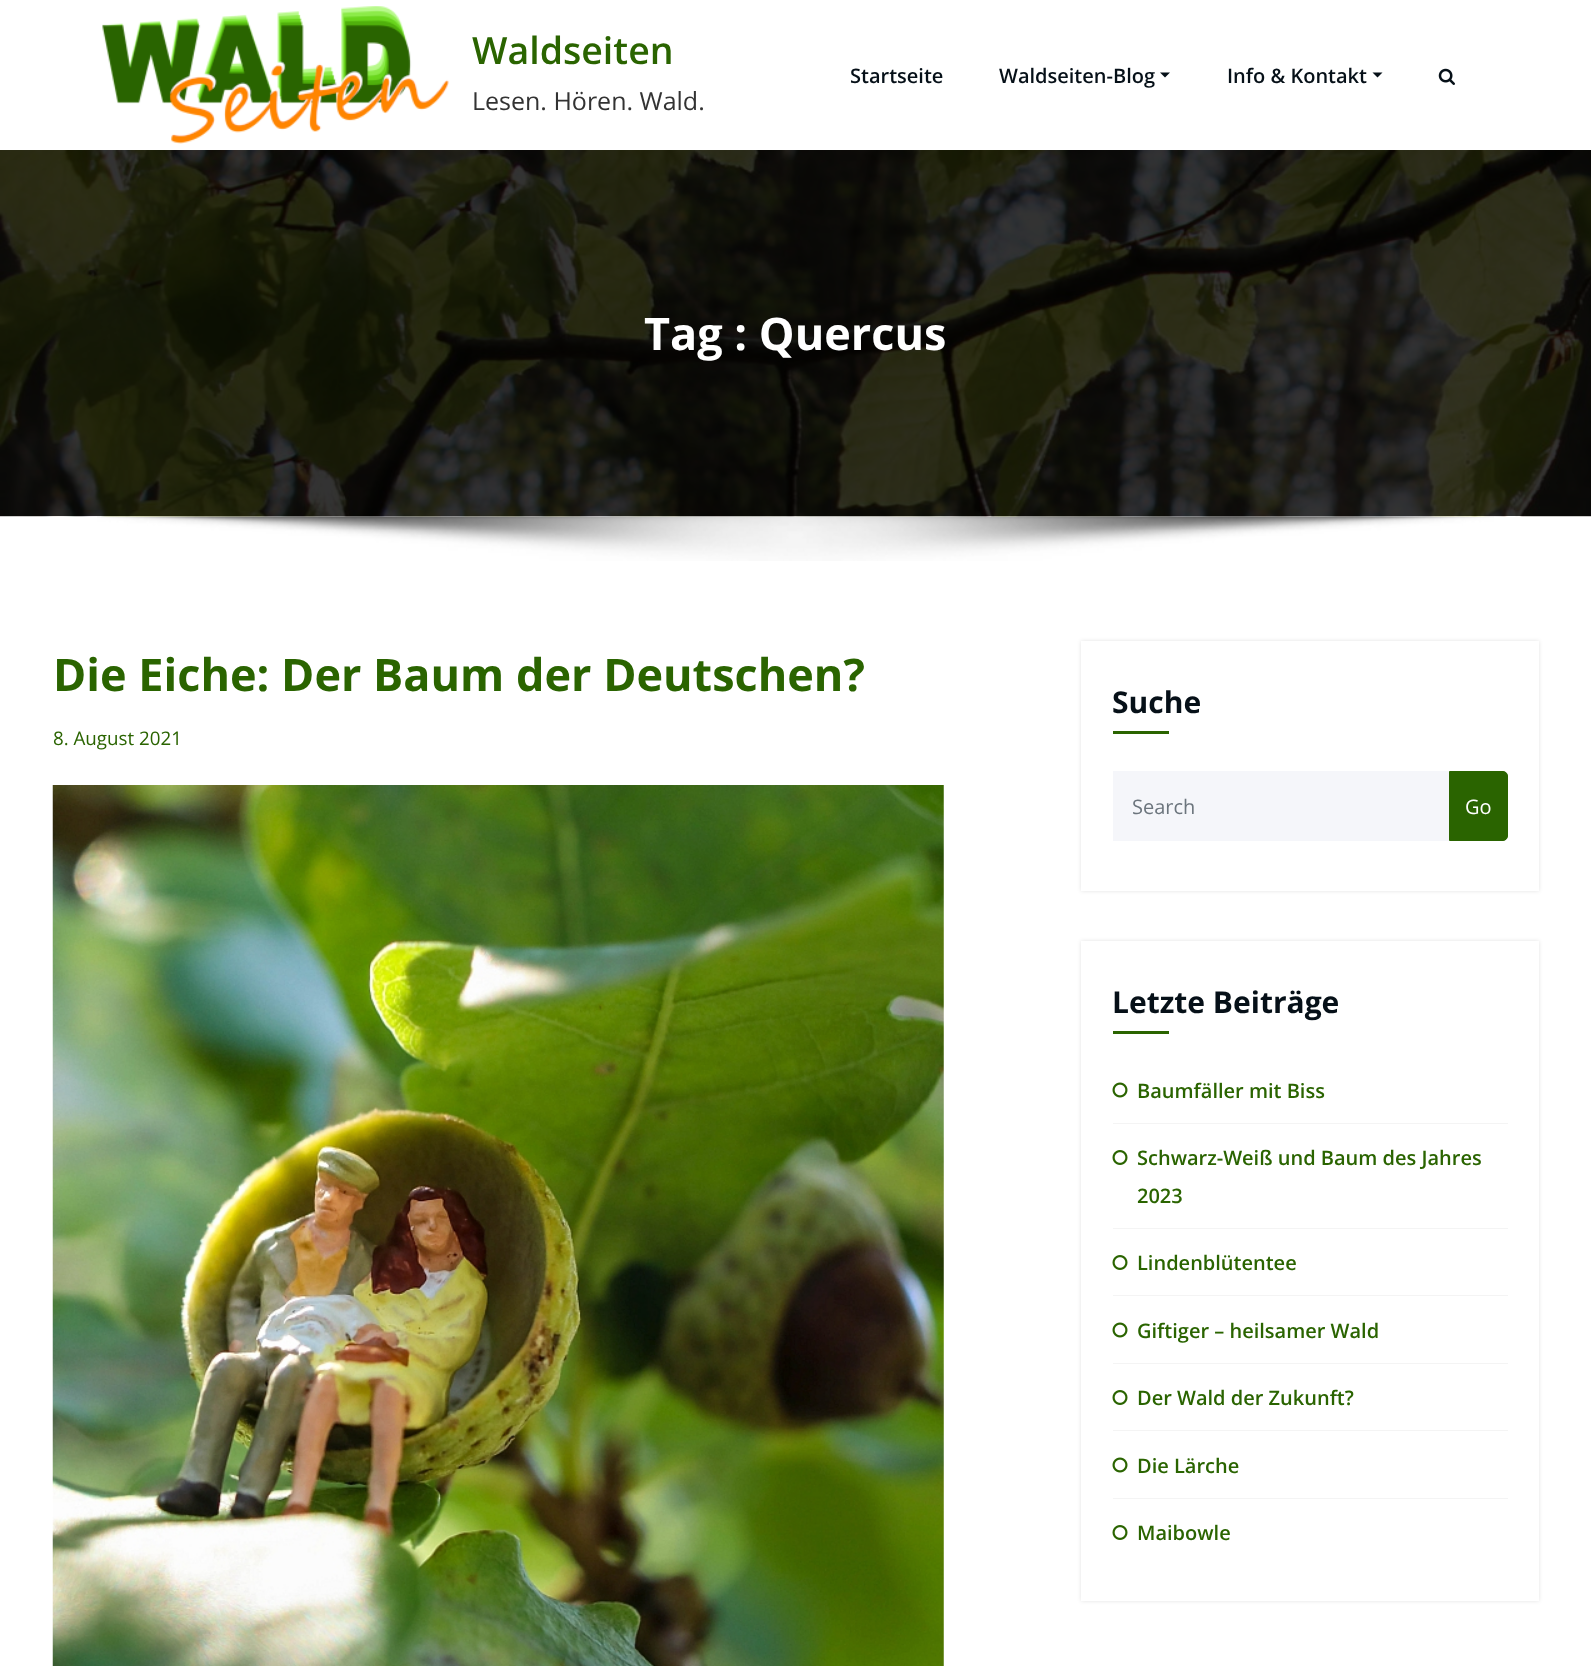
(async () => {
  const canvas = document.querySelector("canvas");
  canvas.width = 1591;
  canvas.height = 1666;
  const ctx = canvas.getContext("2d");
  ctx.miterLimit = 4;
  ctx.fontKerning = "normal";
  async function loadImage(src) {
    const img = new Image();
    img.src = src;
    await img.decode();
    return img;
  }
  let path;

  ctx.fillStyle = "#ffffff";
  ctx.fillRect(0, 0, 1591, 1666);
  ctx.drawImage(await loadImage("img/1.png"), 102, 6, 347, 138);
  ctx.fillStyle = "#061018";
  path = new Path2D("M1160 72.5H1170L1165 77.5Z");
  ctx.fill(path);
  path = new Path2D("M1372.5 72.5H1382.5L1377.5 77.5Z");
  ctx.fill(path);
  ctx.drawImage(await loadImage("img/2.png"), 1438, 68, 17, 17);
  ctx.drawImage(await loadImage("img/3.png"), 0, 150, 1591, 367);
  ctx.drawImage(await loadImage("img/4.png"), 97, 516, 1397, 45);
  ctx.drawImage(await loadImage("img/5.png"), 52, 785, 892, 881);
  ctx.save();
  path = new Path2D("M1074 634H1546V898H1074ZM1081 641H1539V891H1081Z");
  ctx.clip(path, "evenodd");
  ctx.fillStyle = "rgba(0, 0, 0, 0.11)";
  ctx.filter = "blur(2px)";
  ctx.beginPath();
  ctx.rect(1081, 641, 458, 250);
  ctx.fill();
  ctx.filter = "none";
  ctx.restore();
  ctx.fillStyle = "#2a6400";
  ctx.fillRect(1113, 731, 56, 3);
  ctx.fillStyle = "#f5f6fa";
  ctx.fillRect(1113, 771, 336, 70);
  ctx.fillStyle = "#2a6400";
  ctx.beginPath();
  ctx.roundRect(1449.5, 771.5, 58, 69, [0, 4.5, 4.5, 0]);
  ctx.fill();
  ctx.strokeStyle = "#2a6400";
  ctx.stroke();
  ctx.save();
  path = new Path2D("M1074 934H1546V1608H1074ZM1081 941H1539V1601H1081Z");
  ctx.clip(path, "evenodd");
  ctx.fillStyle = "rgba(0, 0, 0, 0.11)";
  ctx.filter = "blur(2px)";
  ctx.beginPath();
  ctx.rect(1081, 941, 458, 660);
  ctx.fill();
  ctx.filter = "none";
  ctx.restore();
  ctx.fillRect(1113, 1031, 56, 3);
  ctx.fillStyle = "#f4f4f4";
  ctx.fillRect(1113, 1123, 395, 1);
  ctx.drawImage(await loadImage("img/6.png"), 1112, 1082, 16, 16);
  ctx.fillRect(1113, 1228, 395, 1);
  ctx.drawImage(await loadImage("img/7.png"), 1112, 1150, 16, 15);
  ctx.fillRect(1113, 1295, 395, 1);
  ctx.drawImage(await loadImage("img/7.png"), 1112, 1255, 16, 15);
  ctx.fillRect(1113, 1363, 395, 1);
  ctx.drawImage(await loadImage("img/6.png"), 1112, 1322, 16, 16);
  ctx.fillRect(1113, 1430, 395, 1);
  ctx.drawImage(await loadImage("img/7.png"), 1112, 1390, 16, 15);
  ctx.fillRect(1113, 1498, 395, 1);
  ctx.drawImage(await loadImage("img/6.png"), 1112, 1457, 16, 16);
  ctx.drawImage(await loadImage("img/7.png"), 1112, 1525, 16, 15);
  ctx.font = "600 37.5px Open Sans";
  ctx.fillStyle = "#2a6400";
  ctx.fillText("Waldseiten", 472, 64);
  ctx.font = "25px Open Sans";
  ctx.fillStyle = "#333333";
  ctx.fillText("Lesen. Hören. Wald.", 472, 110);
  ctx.font = "600 20px Open Sans";
  ctx.fillStyle = "#061018";
  for (const [text, x, y] of [
    ["Startseite", 850, 83],
    ["Waldseiten-Blog", 999, 83],
    ["Info & Kontakt", 1227, 83],
  ]) {
    ctx.fillText(text, x, y);
  }
  ctx.font = "bold 45px Open Sans";
  ctx.fillStyle = "#ffffff";
  ctx.fillText("Tag : Quercus", 644, 350);
  ctx.fillStyle = "#2a6400";
  ctx.fillText("Die Eiche: Der Baum der Deutschen?", 53, 691);
  ctx.font = "18.75px Open Sans";
  ctx.fillText("8. August 2021", 53, 745);
  ctx.font = "bold 30px Open Sans";
  ctx.fillStyle = "#061018";
  ctx.fillText("Suche", 1112, 713);
  ctx.font = "20px Open Sans";
  ctx.fillStyle = "#6c757d";
  ctx.fillText("Search", 1132, 814);
  ctx.fillStyle = "#ffffff";
  ctx.fillText("Go", 1465, 814);
  ctx.font = "bold 30px Open Sans";
  ctx.fillStyle = "#061018";
  ctx.fillText("Letzte Beiträge", 1112, 1013);
  ctx.font = "600 20px Open Sans";
  ctx.fillStyle = "#2a6400";
  for (const [text, x, y] of [
    ["Baumfäller mit Biss", 1137, 1098],
    ["Schwarz-Weiß und Baum des Jahres", 1137, 1165],
    ["2023", 1137, 1203],
    ["Lindenblütentee", 1137, 1270],
    ["Giftiger – heilsamer Wald", 1137, 1338],
    ["Der Wald der Zukunft?", 1137, 1405],
    ["Die Lärche", 1137, 1473],
    ["Maibowle", 1137, 1540],
  ]) {
    ctx.fillText(text, x, y);
  }
})();
